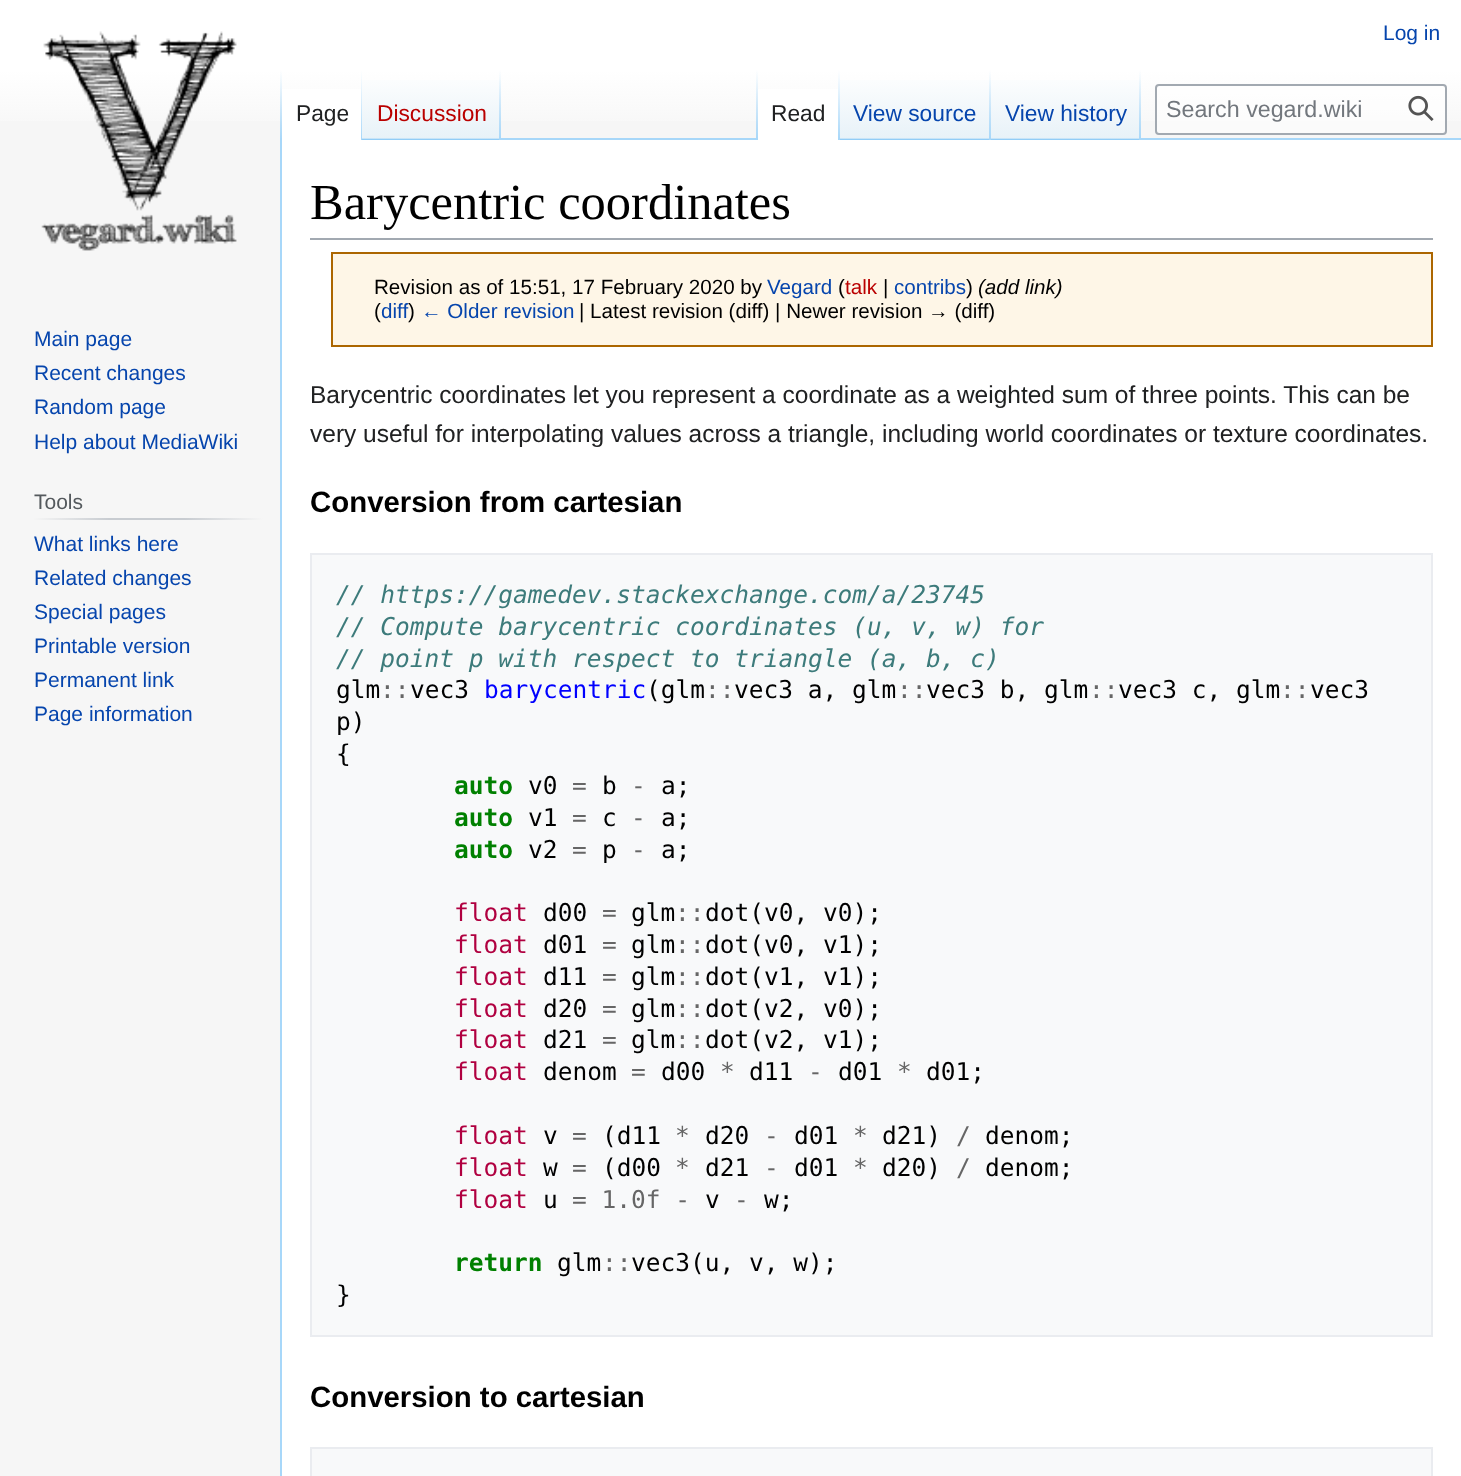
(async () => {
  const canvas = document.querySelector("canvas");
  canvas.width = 1461;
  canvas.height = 1476;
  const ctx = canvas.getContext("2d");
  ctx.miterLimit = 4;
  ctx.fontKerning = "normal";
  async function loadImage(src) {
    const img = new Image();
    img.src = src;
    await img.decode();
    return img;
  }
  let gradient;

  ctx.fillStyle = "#f6f6f6";
  ctx.fillRect(0, 0, 1461, 1476);
  gradient = ctx.createLinearGradient(731, 0, 731, 140);
  gradient.addColorStop(0.5, "#ffffff");
  gradient.addColorStop(1, "#f6f6f6");
  ctx.fillStyle = gradient;
  ctx.fillRect(0, 0, 1461, 121);
  ctx.fillStyle = "#a7d7f9";
  ctx.fillRect(280, 138, 2, 1338);
  gradient = ctx.createLinearGradient(281, 70, 281, 140);
  gradient.addColorStop(0, "rgba(167, 215, 249, 0)");
  gradient.addColorStop(1, "#a7d7f9");
  ctx.fillStyle = gradient;
  ctx.fillRect(280, 70, 2, 70);
  ctx.fillStyle = "#ffffff";
  ctx.fillRect(282, 89, 79, 51);
  gradient = ctx.createLinearGradient(361, 70, 361, 140);
  gradient.addColorStop(0, "#ffffff");
  gradient.addColorStop(1, "#a7d7f9");
  ctx.fillStyle = gradient;
  ctx.fillRect(361, 70, 1, 70);
  gradient = ctx.createLinearGradient(431, 140, 431, 70);
  gradient.addColorStop(0, "#77c1f6");
  gradient.addColorStop(0.03, "#e8f2f8");
  gradient.addColorStop(1, "#ffffff");
  ctx.fillStyle = gradient;
  ctx.fillRect(362, 80, 139, 60);
  gradient = ctx.createLinearGradient(500, 70, 500, 140);
  gradient.addColorStop(0, "rgba(167, 215, 249, 0)");
  gradient.addColorStop(1, "#a7d7f9");
  ctx.fillStyle = gradient;
  ctx.fillRect(499, 70, 2, 70);
  ctx.fillStyle = "#a7d7f9";
  ctx.fillRect(501, 138, 960, 2);
  gradient = ctx.createLinearGradient(757, 70, 757, 140);
  gradient.addColorStop(0, "rgba(167, 215, 249, 0)");
  gradient.addColorStop(1, "#a7d7f9");
  ctx.fillStyle = gradient;
  ctx.fillRect(756, 70, 2, 70);
  ctx.fillStyle = "#ffffff";
  ctx.fillRect(758, 89, 80, 51);
  gradient = ctx.createLinearGradient(839, 70, 839, 140);
  gradient.addColorStop(0, "#ffffff");
  gradient.addColorStop(1, "#a7d7f9");
  ctx.fillStyle = gradient;
  ctx.fillRect(838, 70, 2, 70);
  gradient = ctx.createLinearGradient(915, 140, 915, 70);
  gradient.addColorStop(0, "#77c1f6");
  gradient.addColorStop(0.03, "#e8f2f8");
  gradient.addColorStop(1, "#ffffff");
  ctx.fillStyle = gradient;
  ctx.fillRect(840, 80, 151, 60);
  gradient = ctx.createLinearGradient(990, 70, 990, 140);
  gradient.addColorStop(0, "rgba(167, 215, 249, 0)");
  gradient.addColorStop(1, "#a7d7f9");
  ctx.fillStyle = gradient;
  ctx.fillRect(989, 70, 2, 70);
  gradient = ctx.createLinearGradient(1066, 140, 1066, 70);
  gradient.addColorStop(0, "#77c1f6");
  gradient.addColorStop(0.03, "#e8f2f8");
  gradient.addColorStop(1, "#ffffff");
  ctx.fillStyle = gradient;
  ctx.fillRect(991, 80, 150, 60);
  gradient = ctx.createLinearGradient(1140, 70, 1140, 140);
  gradient.addColorStop(0, "rgba(167, 215, 249, 0)");
  gradient.addColorStop(1, "#a7d7f9");
  ctx.fillStyle = gradient;
  ctx.fillRect(1139, 70, 2, 70);
  ctx.fillStyle = "rgba(255, 255, 255, 0.5)";
  ctx.beginPath();
  ctx.roundRect(1156, 85, 290, 49, 3);
  ctx.fill();
  ctx.strokeStyle = "#a2a9b1";
  ctx.lineWidth = 2;
  ctx.stroke();
  ctx.drawImage(await loadImage("img/1.png"), 1408, 95, 26, 26);
  ctx.drawImage(await loadImage("img/2.png"), 41, 31, 196, 220);
  gradient = ctx.createLinearGradient(33, 519, 263, 519);
  gradient.addColorStop(0, "#f6f6f6");
  gradient.addColorStop(0.33, "#c8ccd1");
  gradient.addColorStop(0.66, "#c8ccd1");
  gradient.addColorStop(1, "#f6f6f6");
  ctx.fillStyle = gradient;
  ctx.fillRect(33, 518, 230, 2);
  ctx.fillStyle = "#ffffff";
  ctx.fillRect(282, 140, 1179, 1336);
  ctx.fillStyle = "#a2a9b1";
  ctx.fillRect(310, 238, 1123, 2);
  ctx.fillStyle = "#fef6e7";
  ctx.beginPath();
  ctx.rect(332, 253, 1100, 93);
  ctx.fill();
  ctx.strokeStyle = "#ac6600";
  ctx.stroke();
  ctx.fillStyle = "#f8f9fa";
  ctx.beginPath();
  ctx.rect(311, 554, 1121, 782);
  ctx.fill();
  ctx.strokeStyle = "#eaecf0";
  ctx.stroke();
  ctx.beginPath();
  ctx.rect(311, 1448, 1121, 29);
  ctx.fill();
  ctx.stroke();
  ctx.font = "21px Liberation Sans";
  ctx.fillStyle = "#0645ad";
  ctx.fillText("Log in", 1383, 40);
  ctx.font = "22.75px Liberation Sans";
  ctx.fillStyle = "#202122";
  ctx.fillText("Page", 296, 121);
  ctx.fillStyle = "#ba0000";
  ctx.fillText("Discussion", 377, 121);
  ctx.fillStyle = "#202122";
  ctx.fillText("Read", 771, 121);
  ctx.fillStyle = "#0645ad";
  ctx.fillText("View source", 853, 121);
  ctx.fillText("View history", 1005, 121);
  ctx.font = "23.25px Liberation Sans";
  ctx.fillStyle = "#72777d";
  ctx.fillText("Search vegard.wiki", 1166, 117);
  ctx.font = "21px Liberation Sans";
  ctx.fillStyle = "#0645ad";
  for (const [text, x, y] of [
    ["Main page", 34, 346],
    ["Recent changes", 34, 380],
    ["Random page", 34, 414],
    ["Help about MediaWiki", 34, 449],
  ]) {
    ctx.fillText(text, x, y);
  }
  ctx.fillStyle = "#54595d";
  ctx.fillText("Tools", 34, 509);
  ctx.fillStyle = "#0645ad";
  for (const [text, x, y] of [
    ["What links here", 34, 551],
    ["Related changes", 34, 585],
    ["Special pages", 34, 619],
    ["Printable version", 34, 653],
    ["Permanent link", 34, 687],
    ["Page information", 34, 721],
  ]) {
    ctx.fillText(text, x, y);
  }
  ctx.font = "50.5px Liberation Serif";
  ctx.fillStyle = "#000000";
  ctx.fillText("Barycentric coordinates", 310, 219);
  ctx.font = "20.6px Liberation Sans";
  ctx.fillText("Revision as of 15:51, 17 February 2020 by", 374, 294);
  ctx.fillStyle = "#0645ad";
  ctx.fillText("Vegard", 767, 294);
  ctx.fillStyle = "#000000";
  ctx.fillText("(", 838, 294);
  ctx.fillStyle = "#ba0000";
  ctx.fillText("talk", 845, 294);
  ctx.fillStyle = "#000000";
  ctx.fillText("|", 883, 294);
  ctx.fillStyle = "#0645ad";
  ctx.fillText("contribs", 894, 294);
  ctx.fillStyle = "#000000";
  ctx.fillText(")", 966, 294);
  ctx.font = "italic 20.6px Liberation Sans";
  ctx.fillText("(add link)", 978, 294);
  ctx.font = "20.6px Liberation Sans";
  ctx.fillText("(", 374, 318);
  ctx.fillStyle = "#0645ad";
  ctx.fillText("diff", 381, 318);
  ctx.fillStyle = "#000000";
  ctx.fillText(")", 408, 318);
  ctx.fillStyle = "#0645ad";
  ctx.fillText("← Older revision", 421, 318);
  ctx.fillStyle = "#000000";
  ctx.fillText("| Latest revision (diff) | Newer revision → (diff)", 579, 318);
  ctx.font = "24.5px Liberation Sans";
  ctx.fillStyle = "#202122";
  ctx.fillText("Barycentric coordinates let you represent a coordinate as a weighted sum of three points. This can be", 310, 403);
  ctx.fillText("very useful for interpolating values across a triangle, including world coordinates or texture coordinates.", 310, 442);
  ctx.font = "bold 29.4px Liberation Sans";
  ctx.fillStyle = "#000000";
  ctx.fillText("Conversion from cartesian", 310, 512);
  ctx.font = "italic 24.5px DejaVu Sans Mono";
  ctx.fillStyle = "#3d7b7b";
  for (const [text, x, y] of [
    ["// https://gamedev.stackexchange.com/a/23745", 336, 603],
    ["// Compute barycentric coordinates (u, v, w) for", 336, 635],
    ["// point p with respect to triangle (a, b, c)", 336, 667],
  ]) {
    ctx.fillText(text, x, y);
  }
  ctx.font = "24.5px DejaVu Sans Mono";
  ctx.fillStyle = "#000000";
  ctx.fillText("glm", 336, 698);
  ctx.fillStyle = "#666666";
  ctx.fillText("::", 380, 698);
  ctx.fillStyle = "#000000";
  ctx.fillText("vec3", 410, 698);
  ctx.fillStyle = "#0000ff";
  ctx.fillText("barycentric", 484, 698);
  ctx.fillStyle = "#000000";
  ctx.fillText("(glm", 646, 698);
  ctx.fillStyle = "#666666";
  ctx.fillText("::", 705, 698);
  ctx.fillStyle = "#000000";
  ctx.fillText("vec3 a, glm", 734, 698);
  ctx.fillStyle = "#666666";
  ctx.fillText("::", 897, 698);
  ctx.fillStyle = "#000000";
  ctx.fillText("vec3 b, glm", 926, 698);
  ctx.fillStyle = "#666666";
  ctx.fillText("::", 1089, 698);
  ctx.fillStyle = "#000000";
  ctx.fillText("vec3 c, glm", 1118, 698);
  ctx.fillStyle = "#666666";
  ctx.fillText("::", 1280, 698);
  ctx.fillStyle = "#000000";
  for (const [text, x, y] of [
    ["vec3", 1310, 698],
    ["p)", 336, 730],
    ["{", 336, 762],
  ]) {
    ctx.fillText(text, x, y);
  }
  ctx.font = "bold 24.5px DejaVu Sans Mono";
  ctx.fillStyle = "#008000";
  ctx.fillText("auto", 454, 794);
  ctx.font = "24.5px DejaVu Sans Mono";
  ctx.fillStyle = "#000000";
  ctx.fillText("v0", 528, 794);
  ctx.fillStyle = "#666666";
  ctx.fillText("=", 572, 794);
  ctx.fillStyle = "#000000";
  ctx.fillText("b", 602, 794);
  ctx.fillStyle = "#666666";
  ctx.fillText("-", 631, 794);
  ctx.fillStyle = "#000000";
  ctx.fillText("a;", 661, 794);
  ctx.font = "bold 24.5px DejaVu Sans Mono";
  ctx.fillStyle = "#008000";
  ctx.fillText("auto", 454, 826);
  ctx.font = "24.5px DejaVu Sans Mono";
  ctx.fillStyle = "#000000";
  ctx.fillText("v1", 528, 826);
  ctx.fillStyle = "#666666";
  ctx.fillText("=", 572, 826);
  ctx.fillStyle = "#000000";
  ctx.fillText("c", 602, 826);
  ctx.fillStyle = "#666666";
  ctx.fillText("-", 631, 826);
  ctx.fillStyle = "#000000";
  ctx.fillText("a;", 661, 826);
  ctx.font = "bold 24.5px DejaVu Sans Mono";
  ctx.fillStyle = "#008000";
  ctx.fillText("auto", 454, 858);
  ctx.font = "24.5px DejaVu Sans Mono";
  ctx.fillStyle = "#000000";
  ctx.fillText("v2", 528, 858);
  ctx.fillStyle = "#666666";
  ctx.fillText("=", 572, 858);
  ctx.fillStyle = "#000000";
  ctx.fillText("p", 602, 858);
  ctx.fillStyle = "#666666";
  ctx.fillText("-", 631, 858);
  ctx.fillStyle = "#000000";
  ctx.fillText("a;", 661, 858);
  ctx.fillStyle = "#b00040";
  ctx.fillText("float", 454, 921);
  ctx.fillStyle = "#000000";
  ctx.fillText("d00", 543, 921);
  ctx.fillStyle = "#666666";
  ctx.fillText("=", 602, 921);
  ctx.fillStyle = "#000000";
  ctx.fillText("glm", 631, 921);
  ctx.fillStyle = "#666666";
  ctx.fillText("::", 675, 921);
  ctx.fillStyle = "#000000";
  ctx.fillText("dot(v0, v0);", 705, 921);
  ctx.fillStyle = "#b00040";
  ctx.fillText("float", 454, 953);
  ctx.fillStyle = "#000000";
  ctx.fillText("d01", 543, 953);
  ctx.fillStyle = "#666666";
  ctx.fillText("=", 602, 953);
  ctx.fillStyle = "#000000";
  ctx.fillText("glm", 631, 953);
  ctx.fillStyle = "#666666";
  ctx.fillText("::", 675, 953);
  ctx.fillStyle = "#000000";
  ctx.fillText("dot(v0, v1);", 705, 953);
  ctx.fillStyle = "#b00040";
  ctx.fillText("float", 454, 985);
  ctx.fillStyle = "#000000";
  ctx.fillText("d11", 543, 985);
  ctx.fillStyle = "#666666";
  ctx.fillText("=", 602, 985);
  ctx.fillStyle = "#000000";
  ctx.fillText("glm", 631, 985);
  ctx.fillStyle = "#666666";
  ctx.fillText("::", 675, 985);
  ctx.fillStyle = "#000000";
  ctx.fillText("dot(v1, v1);", 705, 985);
  ctx.fillStyle = "#b00040";
  ctx.fillText("float", 454, 1017);
  ctx.fillStyle = "#000000";
  ctx.fillText("d20", 543, 1017);
  ctx.fillStyle = "#666666";
  ctx.fillText("=", 602, 1017);
  ctx.fillStyle = "#000000";
  ctx.fillText("glm", 631, 1017);
  ctx.fillStyle = "#666666";
  ctx.fillText("::", 675, 1017);
  ctx.fillStyle = "#000000";
  ctx.fillText("dot(v2, v0);", 705, 1017);
  ctx.fillStyle = "#b00040";
  ctx.fillText("float", 454, 1048);
  ctx.fillStyle = "#000000";
  ctx.fillText("d21", 543, 1048);
  ctx.fillStyle = "#666666";
  ctx.fillText("=", 602, 1048);
  ctx.fillStyle = "#000000";
  ctx.fillText("glm", 631, 1048);
  ctx.fillStyle = "#666666";
  ctx.fillText("::", 675, 1048);
  ctx.fillStyle = "#000000";
  ctx.fillText("dot(v2, v1);", 705, 1048);
  ctx.fillStyle = "#b00040";
  ctx.fillText("float", 454, 1080);
  ctx.fillStyle = "#000000";
  ctx.fillText("denom", 543, 1080);
  ctx.fillStyle = "#666666";
  ctx.fillText("=", 631, 1080);
  ctx.fillStyle = "#000000";
  ctx.fillText("d00", 661, 1080);
  ctx.fillStyle = "#666666";
  ctx.fillText("*", 720, 1080);
  ctx.fillStyle = "#000000";
  ctx.fillText("d11", 749, 1080);
  ctx.fillStyle = "#666666";
  ctx.fillText("-", 808, 1080);
  ctx.fillStyle = "#000000";
  ctx.fillText("d01", 838, 1080);
  ctx.fillStyle = "#666666";
  ctx.fillText("*", 897, 1080);
  ctx.fillStyle = "#000000";
  ctx.fillText("d01;", 926, 1080);
  ctx.fillStyle = "#b00040";
  ctx.fillText("float", 454, 1144);
  ctx.fillStyle = "#000000";
  ctx.fillText("v", 543, 1144);
  ctx.fillStyle = "#666666";
  ctx.fillText("=", 572, 1144);
  ctx.fillStyle = "#000000";
  ctx.fillText("(d11", 602, 1144);
  ctx.fillStyle = "#666666";
  ctx.fillText("*", 675, 1144);
  ctx.fillStyle = "#000000";
  ctx.fillText("d20", 705, 1144);
  ctx.fillStyle = "#666666";
  ctx.fillText("-", 764, 1144);
  ctx.fillStyle = "#000000";
  ctx.fillText("d01", 794, 1144);
  ctx.fillStyle = "#666666";
  ctx.fillText("*", 853, 1144);
  ctx.fillStyle = "#000000";
  ctx.fillText("d21)", 882, 1144);
  ctx.fillStyle = "#666666";
  ctx.fillText("/", 956, 1144);
  ctx.fillStyle = "#000000";
  ctx.fillText("denom;", 985, 1144);
  ctx.fillStyle = "#b00040";
  ctx.fillText("float", 454, 1176);
  ctx.fillStyle = "#000000";
  ctx.fillText("w", 543, 1176);
  ctx.fillStyle = "#666666";
  ctx.fillText("=", 572, 1176);
  ctx.fillStyle = "#000000";
  ctx.fillText("(d00", 602, 1176);
  ctx.fillStyle = "#666666";
  ctx.fillText("*", 675, 1176);
  ctx.fillStyle = "#000000";
  ctx.fillText("d21", 705, 1176);
  ctx.fillStyle = "#666666";
  ctx.fillText("-", 764, 1176);
  ctx.fillStyle = "#000000";
  ctx.fillText("d01", 794, 1176);
  ctx.fillStyle = "#666666";
  ctx.fillText("*", 853, 1176);
  ctx.fillStyle = "#000000";
  ctx.fillText("d20)", 882, 1176);
  ctx.fillStyle = "#666666";
  ctx.fillText("/", 956, 1176);
  ctx.fillStyle = "#000000";
  ctx.fillText("denom;", 985, 1176);
  ctx.fillStyle = "#b00040";
  ctx.fillText("float", 454, 1208);
  ctx.fillStyle = "#000000";
  ctx.fillText("u", 543, 1208);
  ctx.fillStyle = "#666666";
  ctx.fillText("= 1.0f -", 572, 1208);
  ctx.fillStyle = "#000000";
  ctx.fillText("v", 705, 1208);
  ctx.fillStyle = "#666666";
  ctx.fillText("-", 734, 1208);
  ctx.fillStyle = "#000000";
  ctx.fillText("w;", 764, 1208);
  ctx.font = "bold 24.5px DejaVu Sans Mono";
  ctx.fillStyle = "#008000";
  ctx.fillText("return", 454, 1271);
  ctx.font = "24.5px DejaVu Sans Mono";
  ctx.fillStyle = "#000000";
  ctx.fillText("glm", 557, 1271);
  ctx.fillStyle = "#666666";
  ctx.fillText("::", 602, 1271);
  ctx.fillStyle = "#000000";
  ctx.fillText("vec3(u, v, w);", 631, 1271);
  ctx.fillText("}", 336, 1303);
  ctx.font = "bold 29.4px Liberation Sans";
  ctx.fillText("Conversion to cartesian", 310, 1407);
})();
